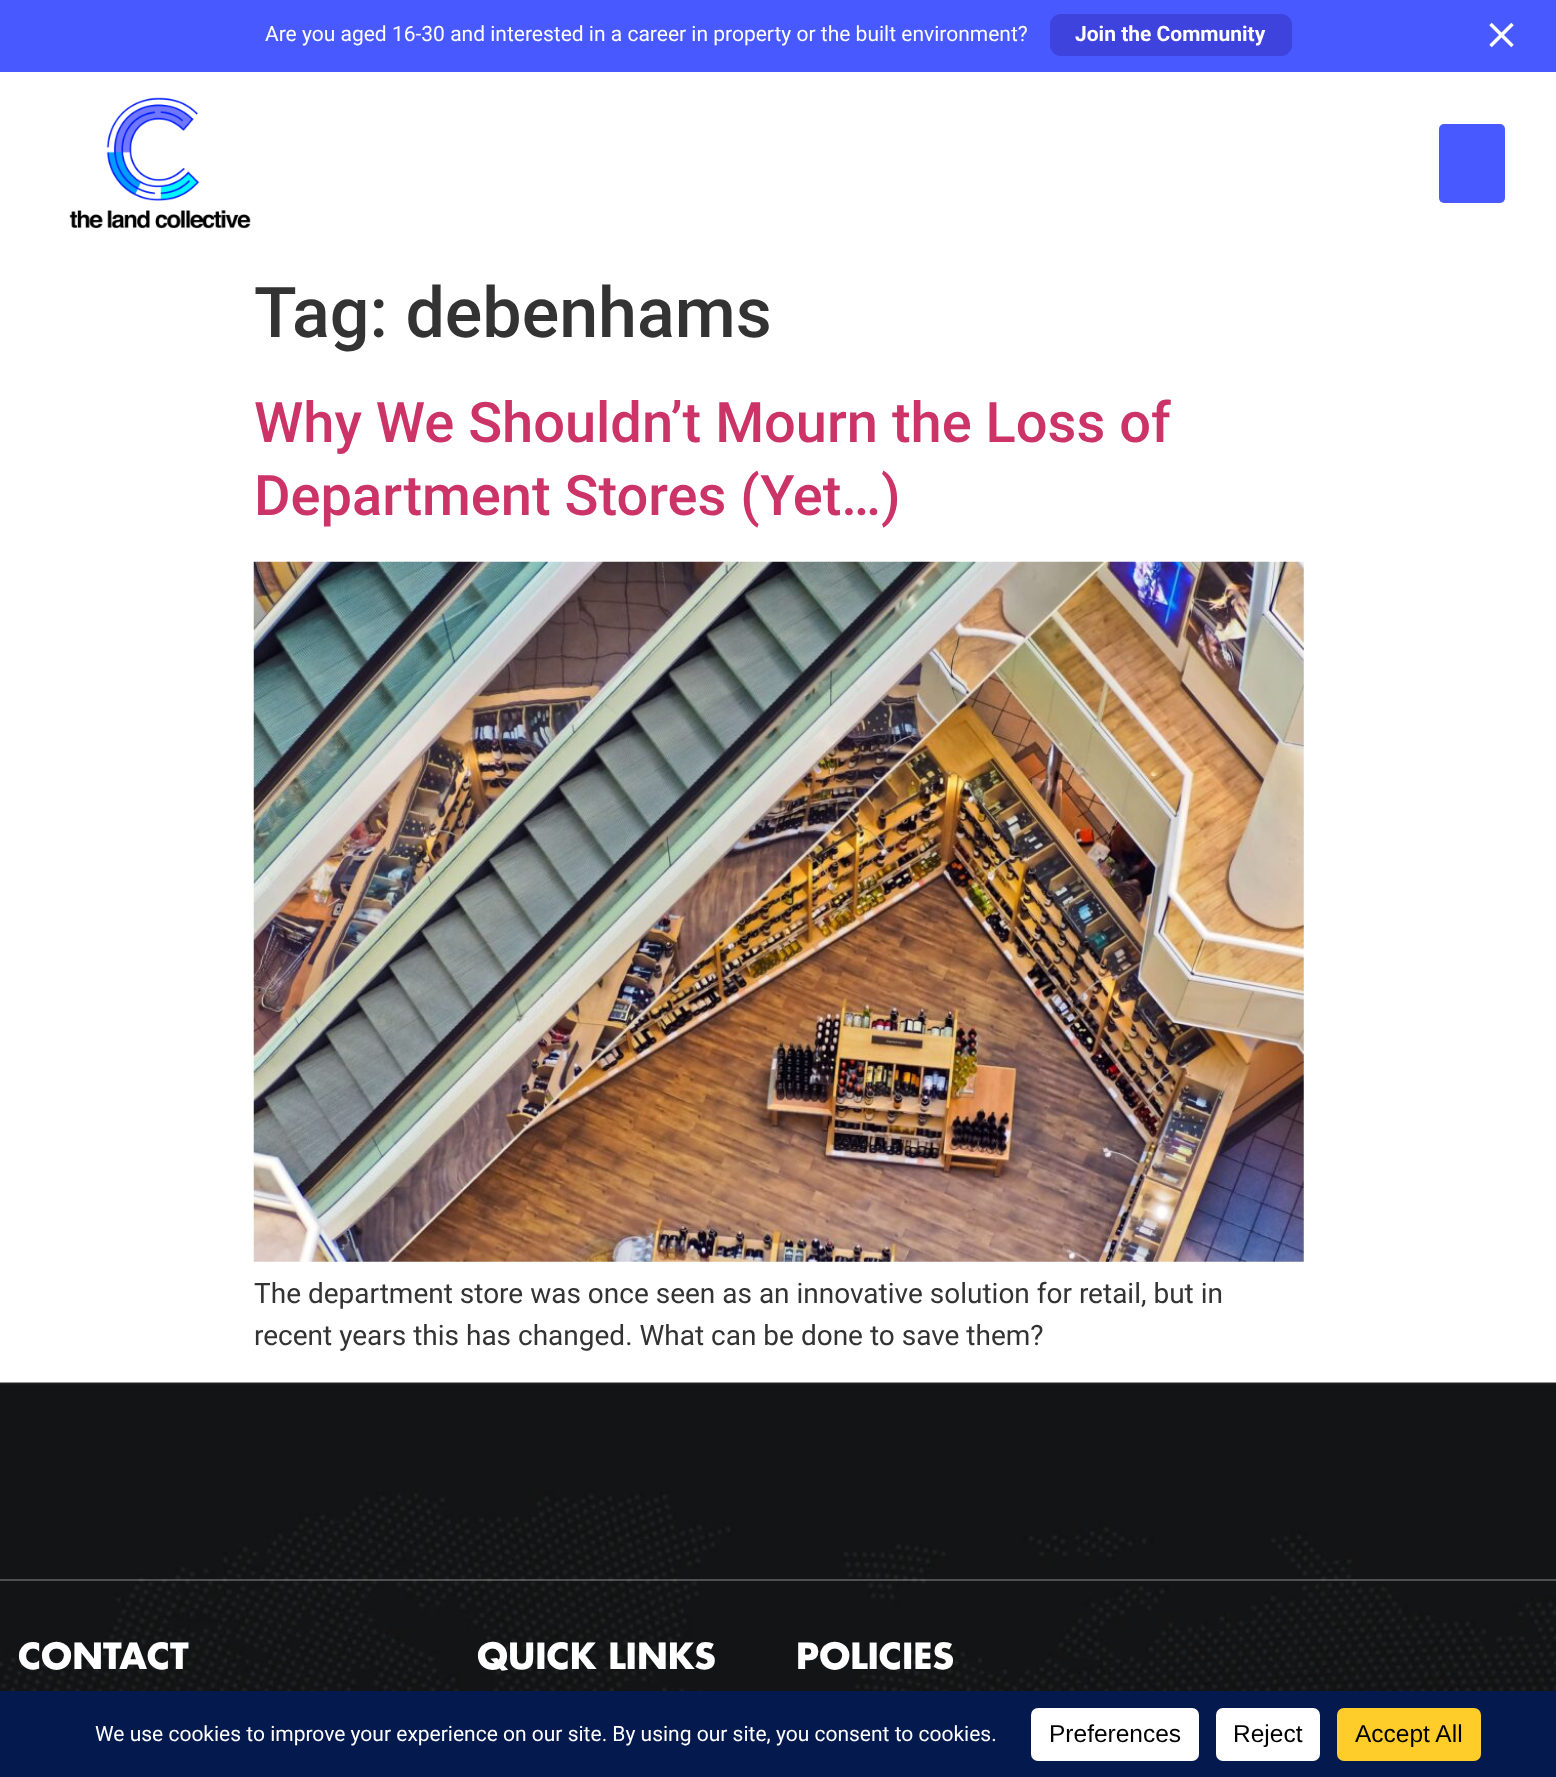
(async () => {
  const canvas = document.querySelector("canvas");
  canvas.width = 1556;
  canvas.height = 1777;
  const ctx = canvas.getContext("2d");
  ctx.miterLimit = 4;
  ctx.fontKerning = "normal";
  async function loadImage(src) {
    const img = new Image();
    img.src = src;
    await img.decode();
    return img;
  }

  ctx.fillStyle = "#ffffff";
  ctx.fillRect(0, 0, 1556, 1777);
  ctx.fillStyle = "#485aff";
  ctx.fillRect(0, 0, 1556, 72);
  ctx.fillStyle = "#3e43dd";
  ctx.beginPath();
  ctx.roundRect(1050, 14, 242, 42, 11);
  ctx.fill();
  ctx.drawImage(await loadImage("img/1.png"), 1489, 22, 25, 26);
  ctx.drawImage(await loadImage("img/2.png"), 69, 97, 182, 132);
  ctx.fillStyle = "#485aff";
  ctx.beginPath();
  ctx.roundRect(1439, 124, 66, 79, 5);
  ctx.fill();
  ctx.drawImage(await loadImage("img/3.png"), 253, 561, 1051, 701);
  ctx.drawImage(await loadImage("img/4.png"), 0, 1382, 1556, 309);
  ctx.fillStyle = "rgba(255, 255, 255, 0.26)";
  ctx.fillRect(0, 1579, 1556, 2);
  ctx.fillStyle = "#04194e";
  ctx.fillRect(0, 1691, 1556, 86);
  ctx.fillStyle = "#ffffff";
  ctx.beginPath();
  ctx.roundRect(1031, 1708, 168, 53, 7);
  ctx.fill();
  ctx.beginPath();
  ctx.roundRect(1216, 1708, 104, 53, 7);
  ctx.fill();
  ctx.fillStyle = "#ffcd2a";
  ctx.beginPath();
  ctx.roundRect(1337, 1708, 144, 53, 7);
  ctx.fill();
  ctx.font = "21px Roboto";
  ctx.fillStyle = "#ffffff";
  ctx.fillText("Are you aged 16-30 and interested in a career in property or the built environment?", 265, 41);
  ctx.font = "bold 21px Roboto";
  ctx.fillText("Join the Community", 1075, 41);
  ctx.font = "500 70px Roboto";
  ctx.fillStyle = "#333333";
  ctx.fillText("Tag: debenhams", 254, 337);
  ctx.font = "500 56px Roboto";
  ctx.fillStyle = "#cc3366";
  ctx.fillText("Why We Shouldn’t Mourn the Loss of", 254, 442);
  ctx.fillText("Department Stores (Yet…)", 254, 515);
  ctx.font = "28px Roboto";
  ctx.fillStyle = "#333333";
  ctx.fillText("The department store was once seen as an innovative solution for retail, but in", 254, 1303);
  ctx.fillText("recent years this has changed. What can be done to save them?", 254, 1345);
  ctx.font = "bold 35px Futura";
  ctx.fillStyle = "#ffffff";
  for (const [text, x, y] of [
    ["CONTACT", 18, 1669],
    ["QUICK LINKS", 477, 1669],
    ["POLICIES", 796, 1669],
  ]) {
    ctx.fillText(text, x, y);
  }
  ctx.font = "21px Roboto";
  ctx.fillText("We use cookies to improve your experience on our site. By using our site, you consent to cookies.", 95, 1741);
  ctx.font = "24.5px Liberation Sans";
  ctx.fillStyle = "#000000";
  for (const [text, x, y] of [
    ["Preferences", 1049, 1742],
    ["Reject", 1233, 1742],
    ["Accept All", 1355, 1742],
  ]) {
    ctx.fillText(text, x, y);
  }
})();
